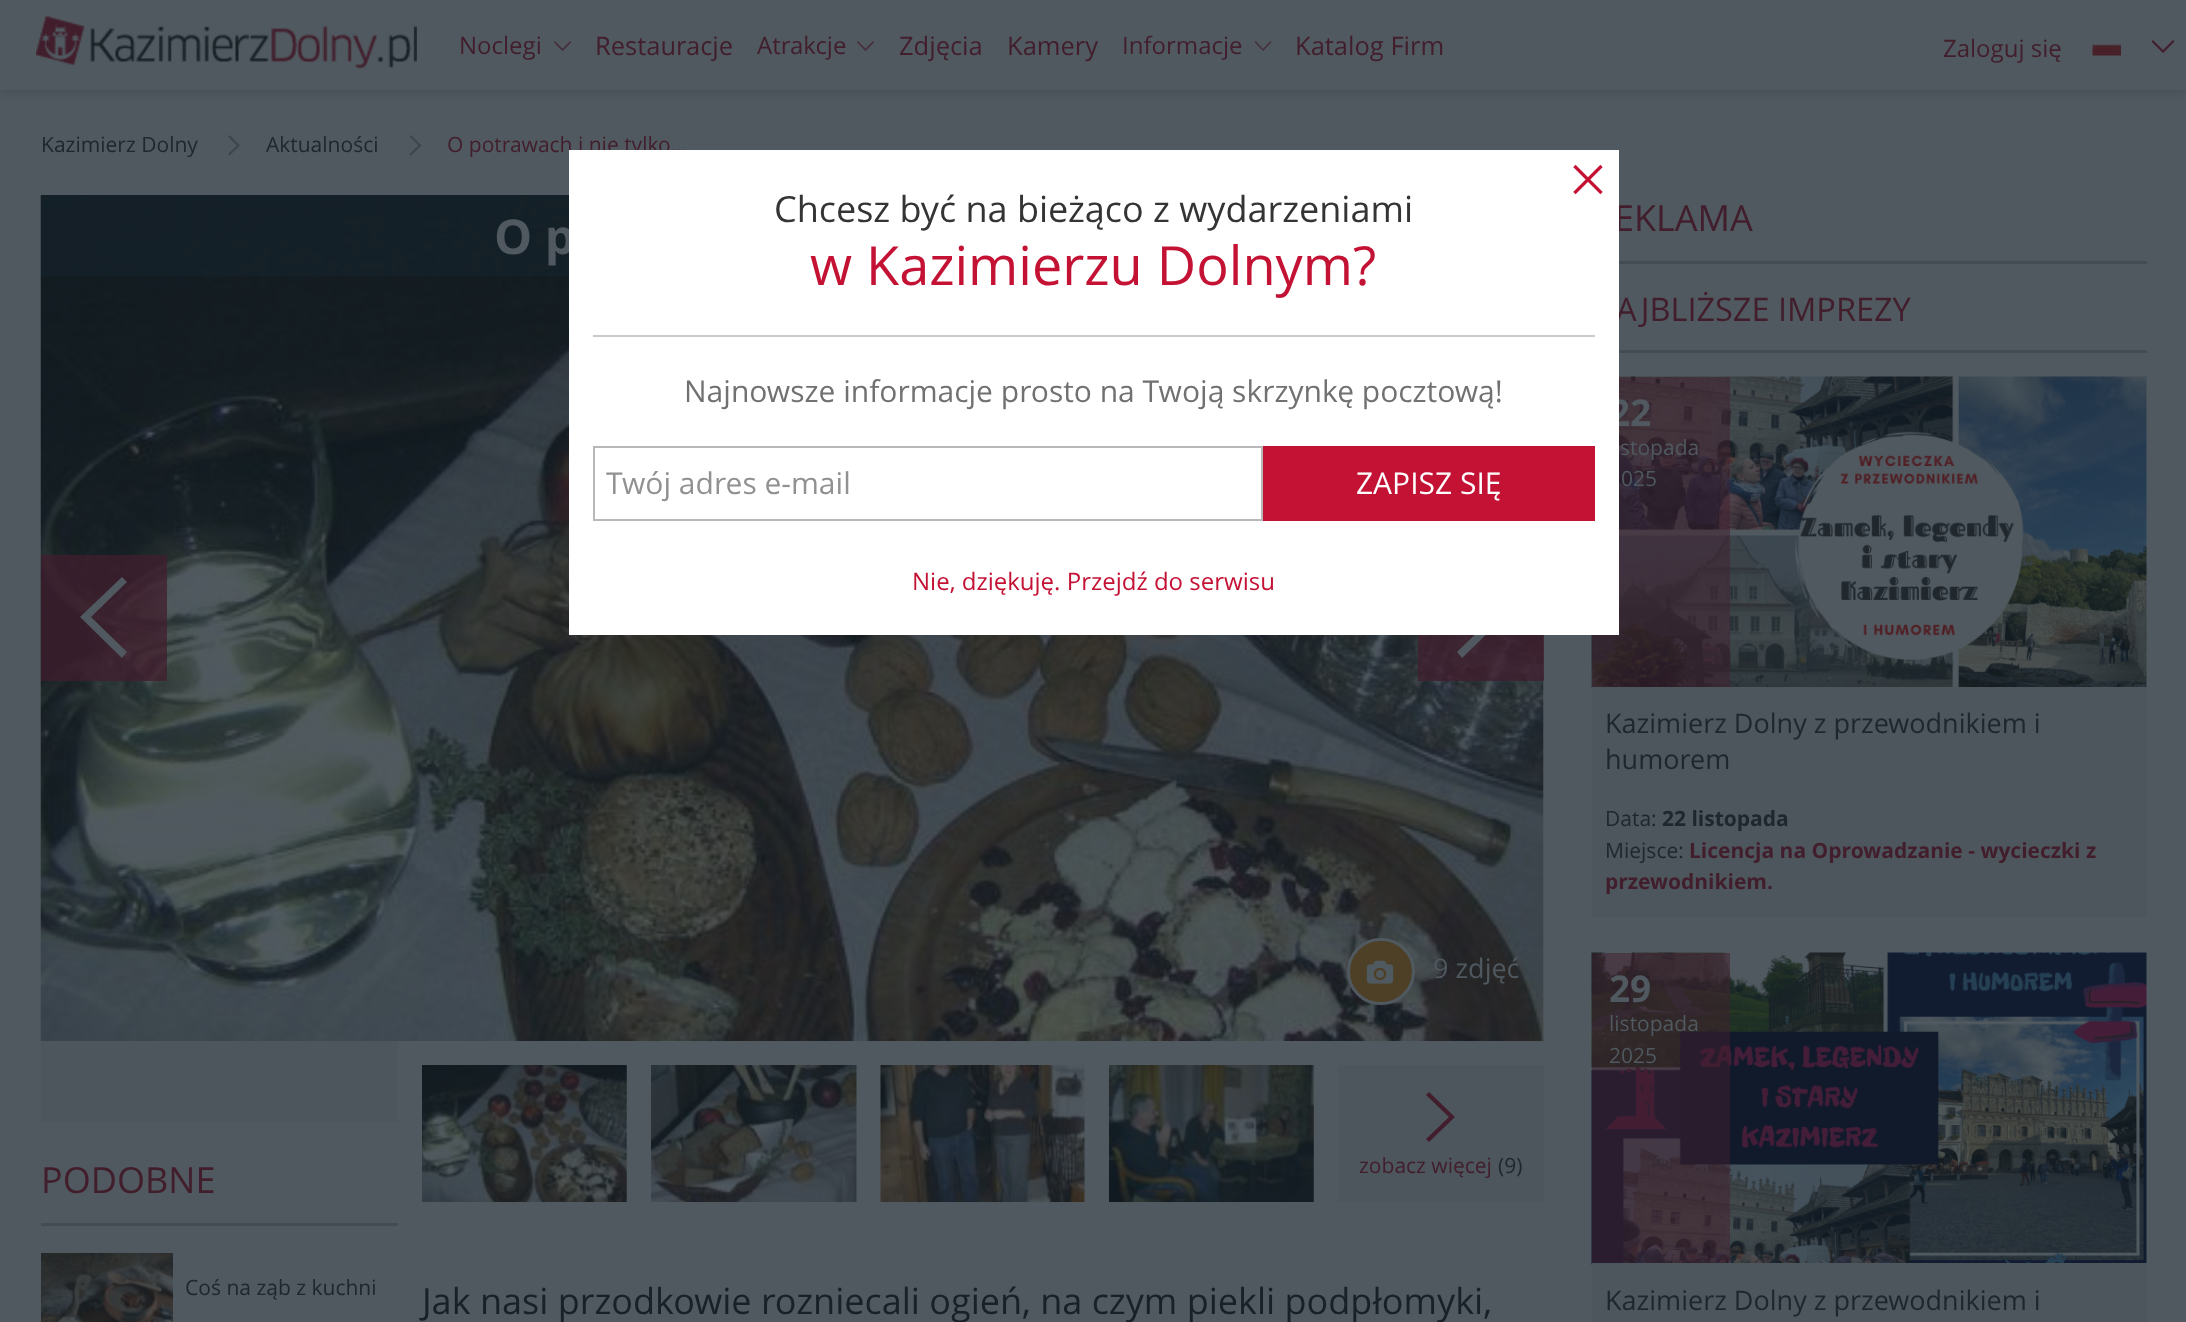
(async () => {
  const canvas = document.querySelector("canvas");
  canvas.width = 2186;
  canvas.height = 1322;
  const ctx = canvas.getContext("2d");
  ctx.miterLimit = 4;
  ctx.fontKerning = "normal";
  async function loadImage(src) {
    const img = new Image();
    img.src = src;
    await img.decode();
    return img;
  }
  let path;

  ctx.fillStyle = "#50595f";
  ctx.fillRect(0, 0, 2186, 1322);
  ctx.fillStyle = "rgba(22, 34, 42, 0.2)";
  ctx.filter = "blur(4.5px)";
  ctx.beginPath();
  ctx.rect(0, 0, 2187, 92);
  ctx.fill();
  ctx.filter = "none";
  ctx.fillStyle = "#50595f";
  ctx.fillRect(0, 0, 2186, 90);
  ctx.fillStyle = "#4a5359";
  ctx.fillRect(0, 91, 1, 1);
  ctx.drawImage(await loadImage("img/1.png"), 36, 16, 381, 53);
  ctx.drawImage(await loadImage("img/2.png"), 554, 41, 17, 10);
  ctx.drawImage(await loadImage("img/2.png"), 857, 41, 17, 10);
  ctx.fillStyle = "#452d39";
  path = new Path2D("M1270.5 41L1271.5 42L1263 51L1254.5 42L1255.5 41L1263 49Z");
  ctx.fill(path);
  ctx.drawImage(await loadImage("img/3.png"), 2092, 43, 29, 13);
  ctx.fillStyle = "#421e2d";
  path = new Path2D("M2173 40L2174.5 41.5L2163 53L2151.5 41.5L2153 40L2163 50Z");
  ctx.fill(path);
  ctx.fillStyle = "#3d464c";
  path = new Path2D("M228 136.5L229.5 135L240 145.5L229.5 155.5L228 154L237 145.5Z");
  ctx.fill(path);
  path = new Path2D("M409.5 136.5L411 135L421.5 145.5L411 155.5L409.5 154L418.5 145.5Z");
  ctx.fill(path);
  ctx.drawImage(await loadImage("img/4.png"), 40, 195, 1504, 846);
  ctx.fillStyle = "rgba(22, 34, 42, 0.75)";
  ctx.fillRect(41, 195, 528, 81);
  ctx.fillStyle = "rgba(66, 30, 45, 0.75)";
  ctx.fillRect(41, 555, 126, 126);
  ctx.fillStyle = "#50595f";
  path = new Path2D("M127 582L122 577L80 617L122 658L127 652L91 617Z");
  ctx.fill(path);
  ctx.fillStyle = "rgba(66, 30, 45, 0.75)";
  ctx.fillRect(1418, 635, 126, 46);
  ctx.fillStyle = "#50595f";
  path = new Path2D("M1457 582L1462 577L1504 617L1462 658L1457 652L1493 617Z");
  ctx.fill(path);
  ctx.fillStyle = "#4e4026";
  ctx.beginPath();
  ctx.roundRect(1348.5, 939.5, 65, 64, 32);
  ctx.fill();
  ctx.strokeStyle = "#50595f";
  ctx.lineWidth = 3;
  ctx.stroke();
  ctx.drawImage(await loadImage("img/5.png"), 1366, 960, 28, 24);
  ctx.fillStyle = "#4d565c";
  ctx.fillRect(41, 1041, 357, 81);
  ctx.fillStyle = "#434c52";
  ctx.fillRect(41, 1223, 357, 3);
  ctx.drawImage(await loadImage("img/6.png"), 41, 1253, 132, 69);
  ctx.drawImage(await loadImage("img/7.png"), 422, 1065, 205, 137);
  ctx.drawImage(await loadImage("img/8.png"), 651, 1065, 206, 137);
  ctx.drawImage(await loadImage("img/9.png"), 880, 1065, 205, 137);
  ctx.drawImage(await loadImage("img/10.png"), 1109, 1065, 205, 137);
  ctx.fillStyle = "#4d565c";
  ctx.fillRect(1338, 1065, 206, 137);
  ctx.fillStyle = "#421e2d";
  path = new Path2D("M1426 1095L1429 1092L1455 1117L1429 1142L1426 1139L1449 1117Z");
  ctx.fill(path);
  ctx.fillStyle = "#434c52";
  ctx.fillRect(1619, 261, 528, 3);
  ctx.fillRect(1619, 350, 528, 3);
  ctx.drawImage(await loadImage("img/11.png"), 1591, 376, 556, 313);
  ctx.fillStyle = "rgba(66, 30, 45, 0.5)";
  ctx.fillRect(1592, 377, 138, 310);
  ctx.fillStyle = "#4d565c";
  ctx.fillRect(1592, 687, 555, 230);
  ctx.drawImage(await loadImage("img/12.png"), 1591, 952, 556, 313);
  ctx.fillStyle = "rgba(66, 30, 45, 0.5)";
  ctx.fillRect(1592, 953, 138, 310);
  ctx.fillStyle = "#4d565c";
  ctx.fillRect(1592, 1263, 555, 59);
  ctx.font = "24px Open Sans";
  ctx.fillStyle = "#421e2d";
  ctx.fillText("Noclegi", 459, 54);
  ctx.font = "25.5px Open Sans";
  ctx.fillText("Restauracje", 595, 55);
  ctx.font = "24px Open Sans";
  ctx.fillText("Atrakcje", 757, 54);
  ctx.font = "25.5px Open Sans";
  ctx.fillText("Zdjęcia", 899, 55);
  ctx.fillText("Kamery", 1007, 55);
  ctx.font = "24px Open Sans";
  ctx.fillText("Informacje", 1122, 54);
  ctx.font = "25.5px Open Sans";
  ctx.fillText("Katalog Firm", 1295, 55);
  ctx.font = "24px Open Sans";
  ctx.fillText("Zaloguj się", 1943, 57);
  ctx.font = "21px Open Sans";
  ctx.fillStyle = "#1e272d";
  ctx.fillText("Kazimierz Dolny", 41, 152);
  ctx.fillText("Aktualności", 266, 152);
  ctx.fillStyle = "#421e2d";
  ctx.fillText("O potrawach i nie tylko…", 447, 152);
  ctx.font = "bold 48px Open Sans";
  ctx.fillStyle = "#50595f";
  ctx.fillText("O p", 494, 254);
  ctx.font = "27px Open Sans";
  ctx.fillText("9 zdjęć", 1433, 978);
  ctx.font = "36px Open Sans";
  ctx.fillStyle = "#421e2d";
  ctx.fillText("PODOBNE", 41, 1193);
  ctx.font = "21px Open Sans";
  ctx.fillStyle = "#1e272d";
  ctx.fillText("Coś na ząb z kuchni", 185, 1295);
  ctx.fillStyle = "#421e2d";
  ctx.fillText("zobacz więcej", 1359, 1173);
  ctx.fillStyle = "#1e272d";
  ctx.fillText("(9)", 1498, 1173);
  ctx.font = "36px Open Sans";
  ctx.fillStyle = "#182127";
  ctx.fillText("Jak nasi przodkowie rozniecali ogień, na czym piekli podpłomyki,", 422, 1314);
  ctx.fillStyle = "#421e2d";
  ctx.fillText("EKLAMA", 1614, 231);
  ctx.font = "32.5px Open Sans";
  ctx.fillText("AJBLIŻSZE IMPREZY", 1616, 321);
  ctx.font = "bold 37px Open Sans";
  ctx.fillStyle = "#50595f";
  ctx.fillText("22", 1609, 426);
  ctx.font = "21px Open Sans";
  ctx.fillText("stopada", 1620, 455);
  ctx.fillText("025", 1621, 486);
  ctx.font = "27px Open Sans";
  ctx.fillStyle = "#1e272d";
  ctx.fillText("Kazimierz Dolny z przewodnikiem i", 1605, 733);
  ctx.fillText("humorem", 1605, 769);
  ctx.font = "21px Open Sans";
  ctx.fillText("Data:", 1605, 826);
  ctx.font = "bold 21px Open Sans";
  ctx.fillText("22 listopada", 1662, 826);
  ctx.font = "21px Open Sans";
  ctx.fillText("Miejsce:", 1605, 858);
  ctx.font = "bold 21px Open Sans";
  ctx.fillStyle = "#421e2d";
  ctx.fillText("Licencja na Oprowadzanie - wycieczki z", 1689, 858);
  ctx.fillText("przewodnikiem.", 1605, 889);
  ctx.font = "bold 37px Open Sans";
  ctx.fillStyle = "#50595f";
  ctx.fillText("29", 1609, 1002);
  ctx.font = "21px Open Sans";
  ctx.fillText("listopada", 1609, 1031);
  ctx.fillText("2025", 1609, 1063);
  ctx.font = "27px Open Sans";
  ctx.fillStyle = "#1e272d";
  ctx.fillText("Kazimierz Dolny z przewodnikiem i", 1605, 1310);
  ctx.fillStyle = "#ffffff";
  ctx.fillRect(569, 150, 1050, 485);
  ctx.drawImage(await loadImage("img/13.png"), 1573, 164, 30, 31);
  ctx.font = "36px Open Sans";
  ctx.fillStyle = "#343434";
  ctx.fillText("Chcesz być na bieżąco z wydarzeniami", 774, 222);
  ctx.font = "54px Open Sans";
  ctx.fillStyle = "#c41234";
  ctx.fillText("w Kazimierzu Dolnym?", 810, 285);
  ctx.fillStyle = "#cacaca";
  ctx.fillRect(593, 335, 1002, 2);
  ctx.font = "30px Open Sans";
  ctx.fillStyle = "#717171";
  ctx.fillText("Najnowsze informacje prosto na Twoją skrzynkę pocztową!", 684, 402);
  ctx.strokeStyle = "#b8b8b8";
  ctx.lineWidth = 2;
  ctx.strokeRect(594, 447, 668, 73);
  ctx.fillStyle = "#919191";
  ctx.fillText("Twój adres e-mail", 606, 494);
  ctx.fillStyle = "#c41234";
  ctx.fillRect(1263, 446, 332, 75);
  ctx.fillStyle = "#ffffff";
  ctx.fillText("ZAPISZ SIĘ", 1356, 494);
  ctx.font = "24px Open Sans";
  ctx.fillStyle = "#c41234";
  ctx.fillText("Nie, dziękuję. Przejdź do serwisu", 912, 590);
})();
